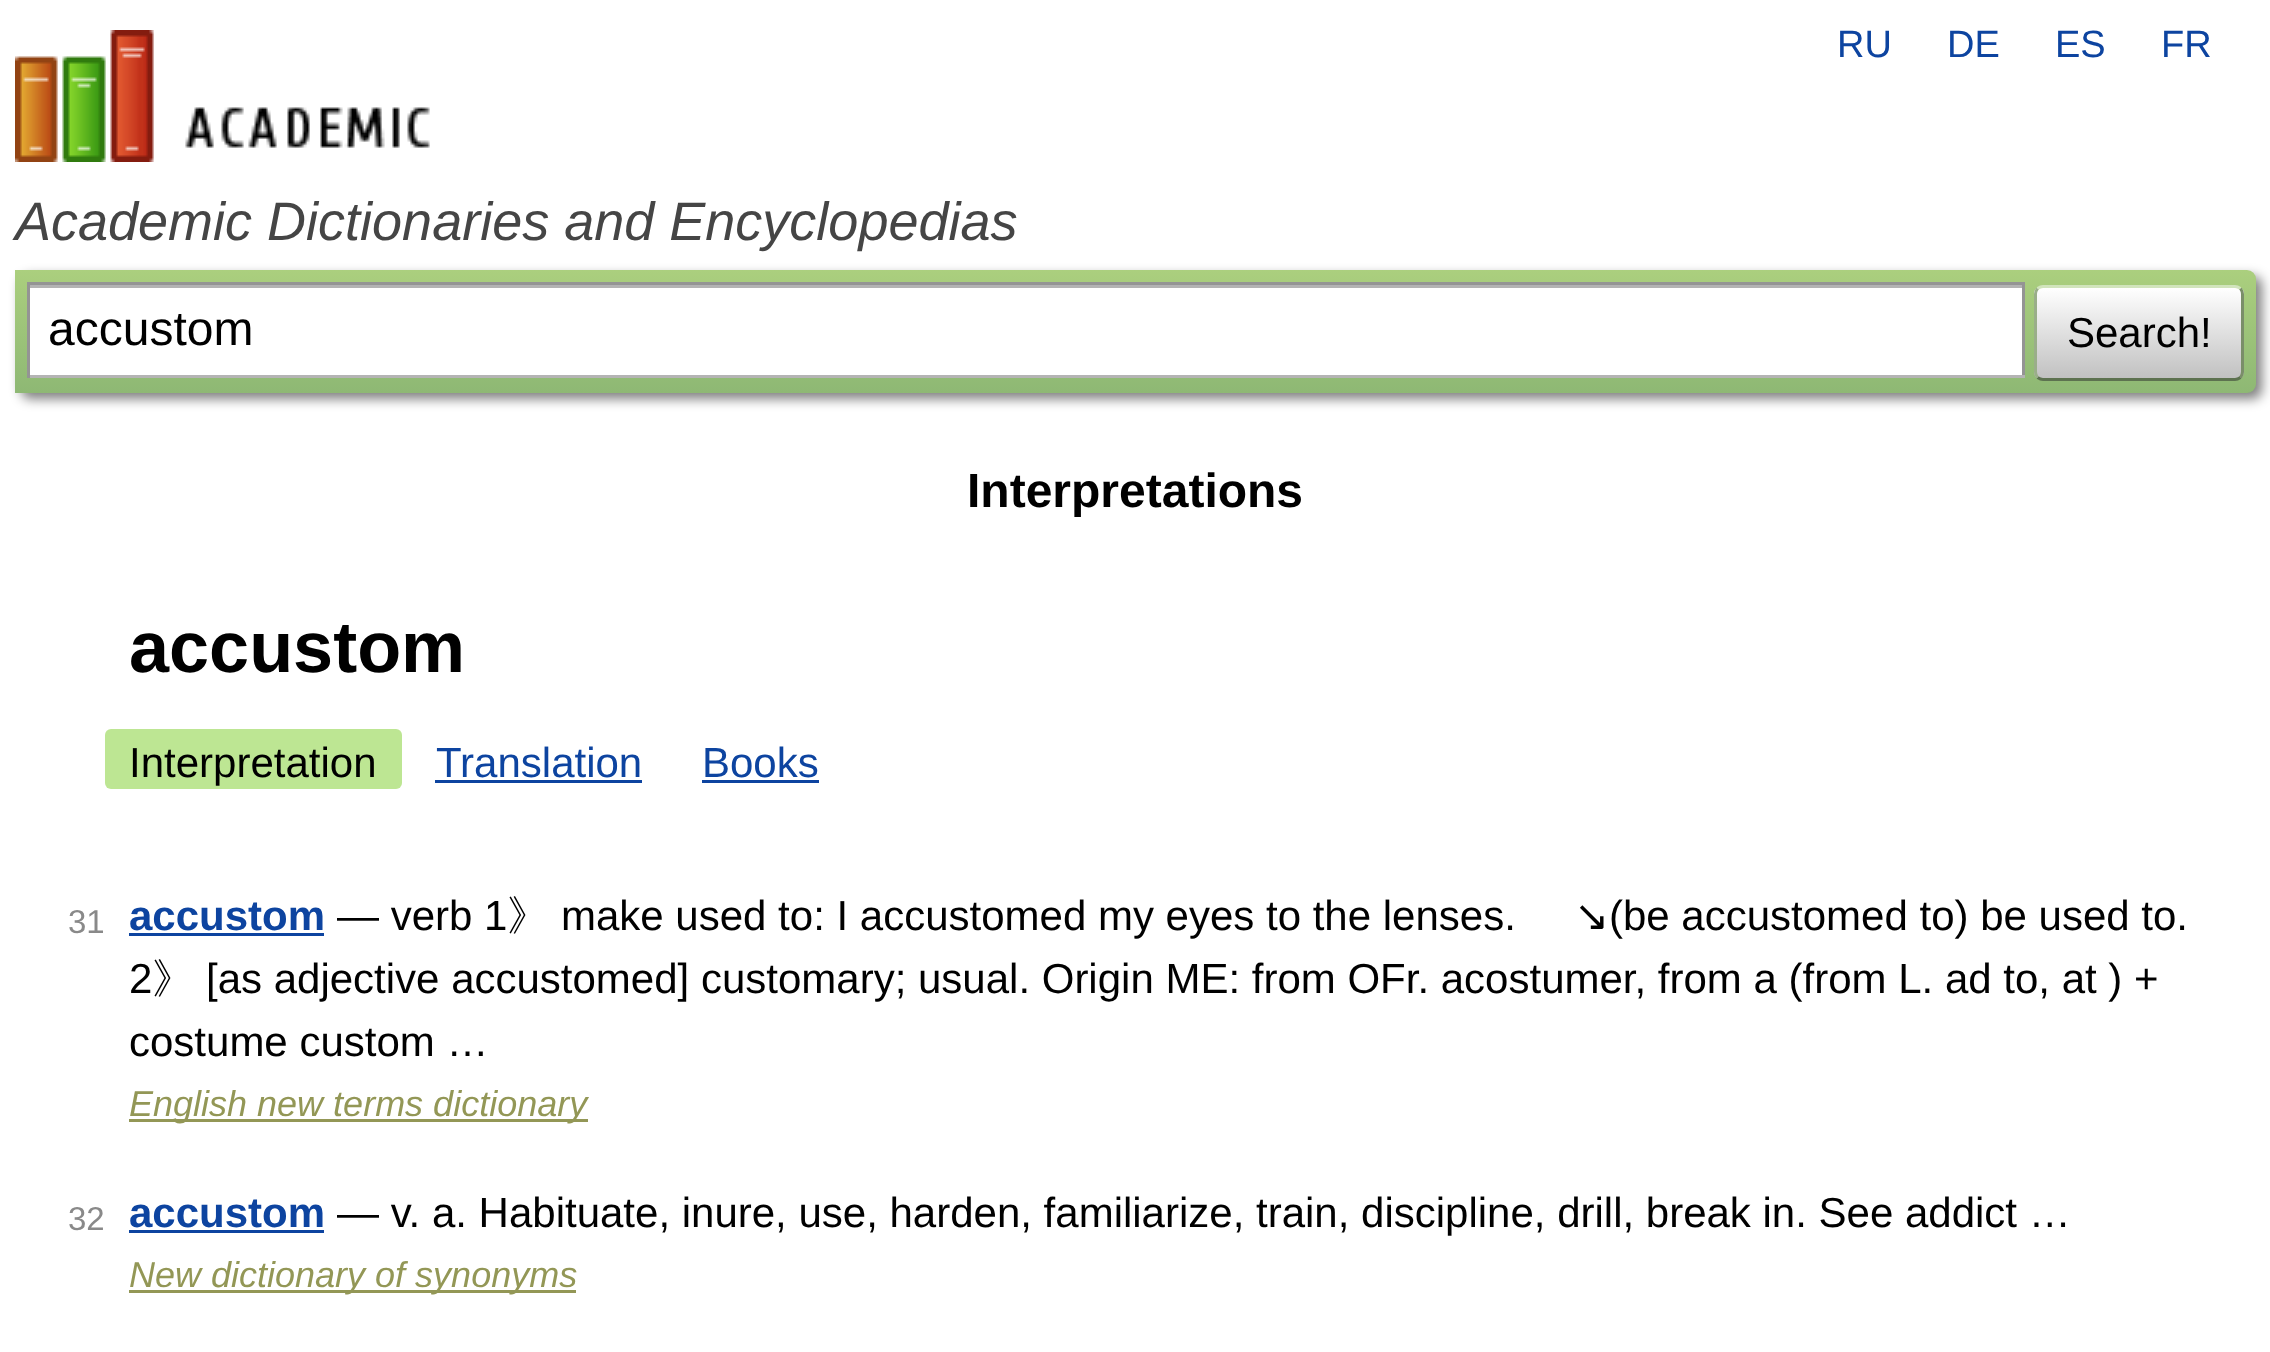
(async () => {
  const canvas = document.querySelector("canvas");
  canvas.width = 2270;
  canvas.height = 1352;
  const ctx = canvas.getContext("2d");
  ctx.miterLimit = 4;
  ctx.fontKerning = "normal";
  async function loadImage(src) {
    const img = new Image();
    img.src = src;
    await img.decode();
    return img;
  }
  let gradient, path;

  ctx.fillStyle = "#ffffff";
  ctx.fillRect(0, 0, 2270, 1352);
  ctx.drawImage(await loadImage("img/1.png"), 15, 30, 415, 132);
  ctx.fillStyle = "rgba(0, 0, 0, 0.5)";
  ctx.filter = "blur(6px)";
  ctx.beginPath();
  ctx.roundRect(21, 276, 2241, 123, 9);
  ctx.fill();
  ctx.filter = "none";
  gradient = ctx.createLinearGradient(1136, 270, 1136, 393);
  gradient.addColorStop(0, "#abcf7e");
  gradient.addColorStop(1, "#8eb874");
  ctx.fillStyle = gradient;
  ctx.beginPath();
  ctx.roundRect(15, 270, 2241, 123, [0, 9, 9, 0]);
  ctx.fill();
  for (const [x, y, w, h, color] of [
    [30, 288, 1992, 87, "#ffffff"],
    [30, 285, 1992, 3, "#b3b3b3"],
    [27, 282, 1998, 3, "#949494"],
    [2022, 282, 3, 96, "#949494"],
    [27, 375, 1998, 3, "#b4b4b4"],
    [27, 282, 3, 96, "#949494"],
  ]) {
    ctx.fillStyle = color;
    ctx.fillRect(x, y, w, h);
  }
  ctx.save();
  ctx.beginPath();
  ctx.roundRect(2034, 285, 210, 96, 9);
  ctx.clip();
  gradient = ctx.createLinearGradient(2139, 288, 2139, 378);
  gradient.addColorStop(0, "#ffffff");
  gradient.addColorStop(1, "#c1c1c1");
  ctx.fillStyle = gradient;
  ctx.fillRect(2034, 288, 210, 90);
  ctx.restore();
  path = new Path2D("M2037.5 288.5C2039 287.5 2041 286.5 2043 286.5H2235C2237 286.5 2239 287.5 2240.5 288.5");
  ctx.strokeStyle = "#d1e4bc";
  ctx.lineWidth = 3;
  ctx.stroke(path);
  path = new Path2D("M2240.5 288.5C2241.5 290 2242.5 292 2242.5 294V372C2242.5 374 2241.5 376 2240.5 377.5");
  ctx.strokeStyle = "#7a8e69";
  ctx.stroke(path);
  path = new Path2D("M2240.5 377.5C2239 378.5 2237 379.5 2235 379.5H2043C2041 379.5 2039 378.5 2037.5 377.5");
  ctx.strokeStyle = "#5d7250";
  ctx.stroke(path);
  path = new Path2D("M2037.5 377.5C2036.5 376 2035.5 374 2035.5 372V294C2035.5 292 2036.5 290 2037.5 288.5");
  ctx.strokeStyle = "#9aae89";
  ctx.stroke(path);
  ctx.fillStyle = "#bde693";
  ctx.beginPath();
  ctx.roundRect(105, 729, 297, 60, 6);
  ctx.fill();
  for (const [x, y, w, h, color] of [
    [435, 780, 207, 3, "#0d44a0"],
    [702, 780, 117, 3, "#0d44a0"],
    [129, 933, 195, 3, "#0d44a0"],
    [129, 1119, 459, 3, "#939756"],
    [129, 1230, 195, 3, "#0d44a0"],
    [129, 1290, 447, 3, "#939756"],
  ]) {
    ctx.fillStyle = color;
    ctx.fillRect(x, y, w, h);
  }
  ctx.font = "38px Liberation Sans";
  ctx.fillStyle = "#0d44a0";
  for (const [text, x, y] of [
    ["RU", 1837, 57],
    ["DE", 1947, 57],
    ["ES", 2055, 57],
    ["FR", 2161, 57],
  ]) {
    ctx.fillText(text, x, y);
  }
  ctx.font = "italic 54px Liberation Sans";
  ctx.fillStyle = "#454545";
  ctx.fillText("Academic Dictionaries and Encyclopedias", 15, 240);
  ctx.font = "48px Liberation Sans";
  ctx.fillStyle = "#000000";
  ctx.fillText("accustom", 48, 345);
  ctx.font = "42px Liberation Sans";
  ctx.fillText("Search!", 2067, 347);
  ctx.font = "bold 48px Liberation Sans";
  ctx.fillText("Interpretations", 967, 507);
  ctx.font = "bold 72px Liberation Sans";
  ctx.fillText("accustom", 129, 672);
  ctx.font = "42px Liberation Sans";
  ctx.fillText("Interpretation", 129, 777);
  ctx.fillStyle = "#0d44a0";
  ctx.fillText("Translation", 436, 777);
  ctx.fillText("Books", 702, 777);
  ctx.font = "33px Liberation Sans";
  ctx.fillStyle = "#898989";
  ctx.fillText("31", 68, 933);
  ctx.font = "bold 42px Liberation Sans";
  ctx.fillStyle = "#0d44a0";
  ctx.fillText("accustom", 129, 930);
  ctx.font = "42px Liberation Sans";
  ctx.fillStyle = "#000000";
  ctx.fillText("— verb 1", 337, 930);
  ctx.font = "500 42px WenQuanYi Zen Hei";
  ctx.fillText("》", 507, 930);
  ctx.font = "42px Liberation Sans";
  ctx.fillText("make used to: I accustomed my eyes to the lenses.", 561, 930);
  ctx.font = "42px DejaVu Sans";
  ctx.fillText("↘", 1574, 930);
  ctx.font = "42px Liberation Sans";
  ctx.fillText("(be accustomed to) be used to.", 1609, 930);
  ctx.fillText("2", 129, 993);
  ctx.font = "500 42px WenQuanYi Zen Hei";
  ctx.fillText("》", 152, 993);
  ctx.font = "42px Liberation Sans";
  ctx.fillText("[as adjective accustomed] customary; usual. Origin ME: from OFr. acostumer, from a (from L. ad to, at ) +", 206, 993);
  ctx.fillText("costume custom …", 129, 1056);
  ctx.font = "italic 36px Liberation Sans";
  ctx.fillStyle = "#939756";
  ctx.fillText("English new terms dictionary", 129, 1116);
  ctx.font = "33px Liberation Sans";
  ctx.fillStyle = "#898989";
  ctx.fillText("32", 68, 1230);
  ctx.font = "bold 42px Liberation Sans";
  ctx.fillStyle = "#0d44a0";
  ctx.fillText("accustom", 129, 1227);
  ctx.font = "42px Liberation Sans";
  ctx.fillStyle = "#000000";
  ctx.fillText("— v. a. Habituate, inure, use, harden, familiarize, train, discipline, drill, break in. See addict …", 337, 1227);
  ctx.font = "italic 36px Liberation Sans";
  ctx.fillStyle = "#939756";
  ctx.fillText("New dictionary of synonyms", 129, 1287);
})();
